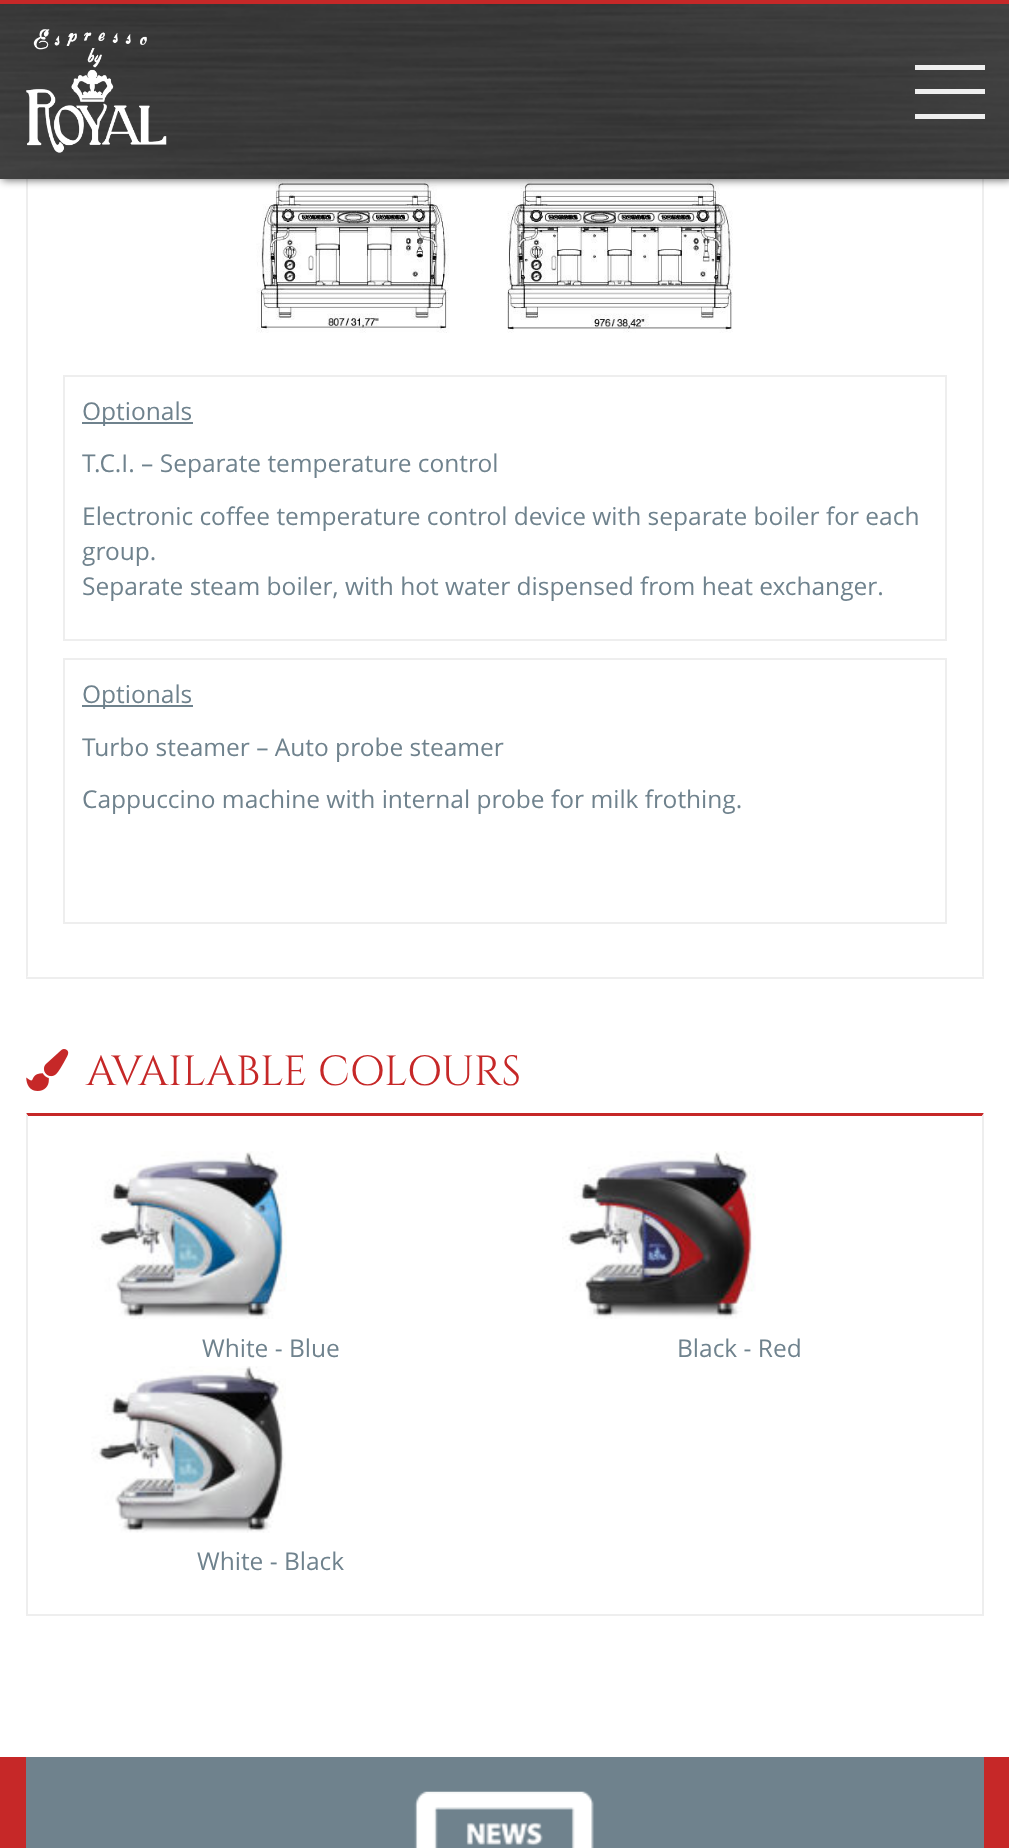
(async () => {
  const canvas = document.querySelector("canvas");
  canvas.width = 1009;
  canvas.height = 1848;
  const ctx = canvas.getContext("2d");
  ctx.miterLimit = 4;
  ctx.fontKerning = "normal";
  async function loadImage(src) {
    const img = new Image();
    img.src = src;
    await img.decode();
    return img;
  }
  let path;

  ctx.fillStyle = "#ffffff";
  ctx.fillRect(0, 0, 1009, 1848);
  ctx.fillStyle = "#eeeeee";
  path = new Path2D("M984-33V978L982 976V-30Z");
  ctx.fill(path);
  ctx.fillRect(26, 977, 958, 2);
  path = new Path2D("M26 978V-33L28-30V976Z");
  ctx.fill(path);
  ctx.drawImage(await loadImage("img/3.png"), 217, 179, 574, 154);
  ctx.fillStyle = "rgba(0, 0, 0, 0.6)";
  ctx.filter = "blur(4.5px)";
  ctx.beginPath();
  ctx.rect(2, 2, 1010, 178);
  ctx.fill();
  ctx.filter = "none";
  ctx.drawImage(await loadImage("img/1.png"), 0, 4, 1009, 175);
  ctx.fillStyle = "#c62828";
  ctx.fillRect(0, 0, 1009, 4);
  ctx.drawImage(await loadImage("img/2.png"), 26, 29, 141, 124);
  for (const [x, y, w, h, color] of [
    [915, 89, 70, 5, "#eeeeee"],
    [915, 65, 70, 5, "#eeeeee"],
    [915, 114, 70, 5, "#eeeeee"],
  ]) {
    ctx.fillStyle = color;
    ctx.fillRect(x, y, w, h);
  }
  ctx.strokeStyle = "#eeeeee";
  ctx.lineWidth = 2;
  ctx.strokeRect(64, 376, 882, 264);
  ctx.fillStyle = "#6f828d";
  ctx.fillRect(82, 422, 111, 2);
  ctx.strokeRect(64, 659, 882, 264);
  ctx.fillRect(82, 705, 111, 2);
  ctx.drawImage(await loadImage("img/4.png"), 26, 1049, 43, 42);
  ctx.fillStyle = "#c62828";
  path = new Path2D("M26 1113H984L982 1116H28Z");
  ctx.fill(path);
  ctx.fillStyle = "#eeeeee";
  path = new Path2D("M984 1113V1615L982 1614V1116Z");
  ctx.fill(path);
  ctx.fillRect(26, 1614, 958, 2);
  path = new Path2D("M26 1615V1113L28 1116V1614Z");
  ctx.fill(path);
  ctx.drawImage(await loadImage("img/5.png"), 91, 1151, 196, 168);
  ctx.drawImage(await loadImage("img/6.png"), 562, 1151, 194, 168);
  ctx.drawImage(await loadImage("img/7.png"), 91, 1366, 195, 167);
  ctx.fillStyle = "#c62828";
  ctx.fillRect(0, 1757, 1009, 91);
  ctx.fillStyle = "#6f828d";
  ctx.fillRect(26, 1757, 958, 91);
  ctx.drawImage(await loadImage("img/8.png"), 414, 1791, 180, 57);
  ctx.font = "24.5px Open Sans";
  for (const [text, x, y] of [
    ["Optionals", 82, 420],
    ["T.C.I. – Separate temperature control", 82, 472],
    ["Electronic coffee temperature control device with separate boiler for each", 82, 525],
    ["group.", 82, 560],
    ["Separate steam boiler, with hot water dispensed from heat exchanger.", 82, 595],
    ["Optionals", 82, 703],
    ["Turbo steamer – Auto probe steamer", 82, 756],
    ["Cappuccino machine with internal probe for milk frothing.", 82, 808],
  ]) {
    ctx.fillText(text, x, y);
  }
  ctx.font = "42px Cinzel";
  ctx.fillStyle = "#c62828";
  ctx.fillText("AVAILABLE COLOURS", 86, 1085);
  ctx.font = "24.5px Open Sans";
  ctx.fillStyle = "#6f828d";
  for (const [text, x, y] of [
    ["White - Blue", 202, 1357],
    ["Black - Red", 677, 1357],
    ["White - Black", 197, 1570],
  ]) {
    ctx.fillText(text, x, y);
  }
})();
